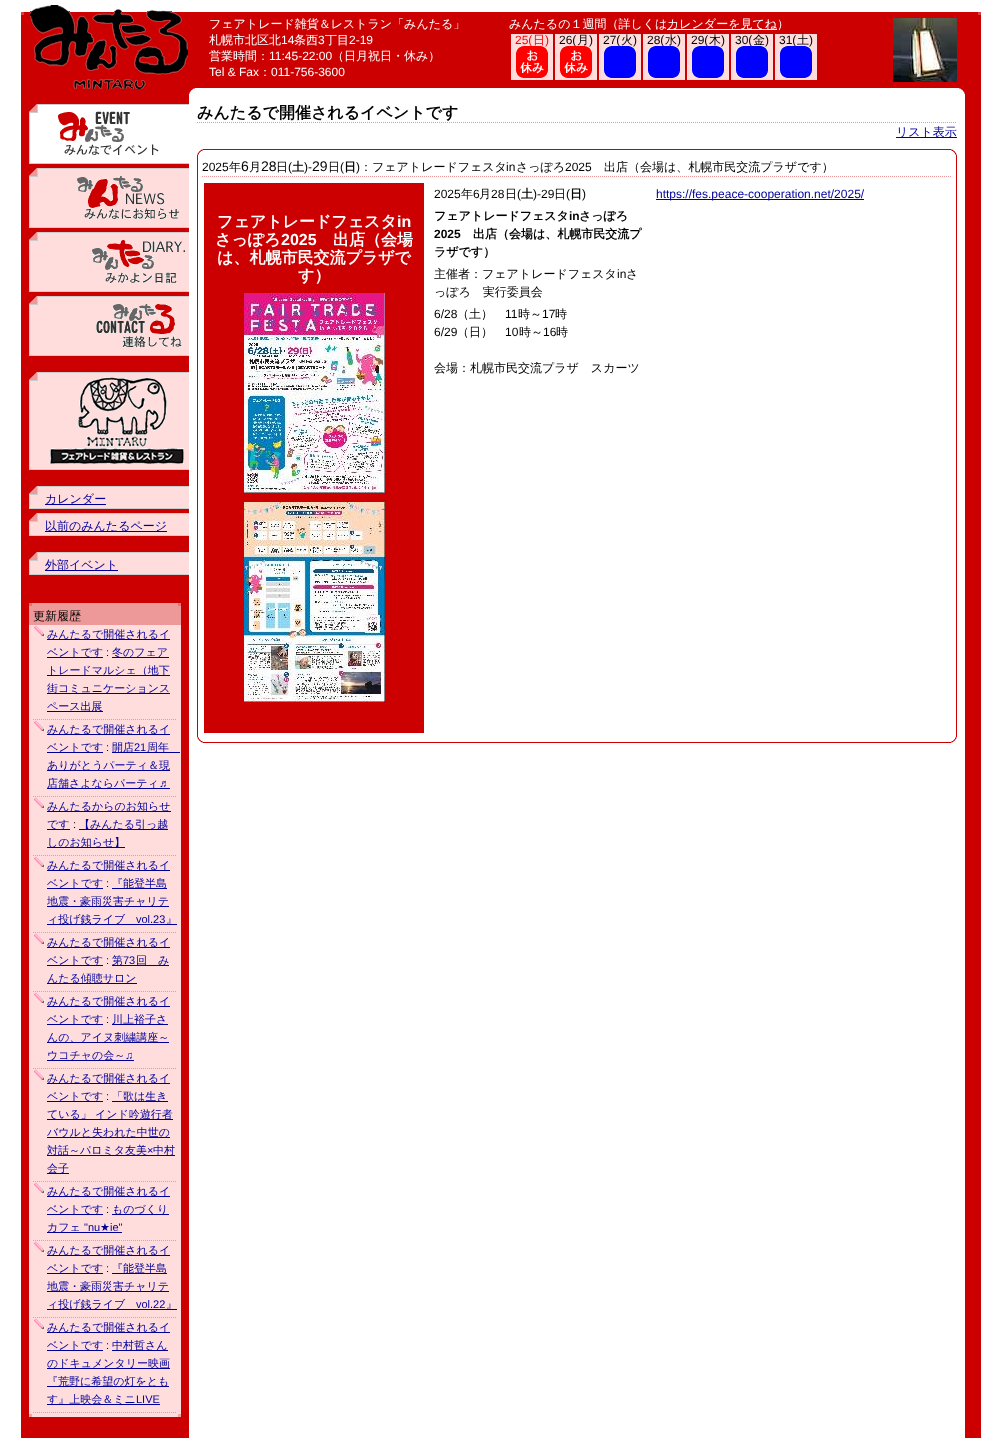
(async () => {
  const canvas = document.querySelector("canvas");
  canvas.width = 1002;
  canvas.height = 1438;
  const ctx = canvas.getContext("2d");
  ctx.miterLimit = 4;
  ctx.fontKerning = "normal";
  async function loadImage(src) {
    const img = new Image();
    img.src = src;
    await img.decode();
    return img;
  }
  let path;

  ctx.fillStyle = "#ffffff";
  ctx.fillRect(0, 0, 1002, 1438);
  for (const [x, y, w, h, color] of [
    [21, 12, 960, 1426, "#cc0000"],
    [21, 12, 3, 3, "#d83f3f"],
    [978, 12, 3, 3, "#d83f3f"],
  ]) {
    ctx.fillStyle = color;
    ctx.fillRect(x, y, w, h);
  }
  ctx.drawImage(await loadImage("img/1.png"), 30, 5, 158, 84);
  for (const [x, y, w, h, color] of [
    [667, 29, 110, 1, "#ffffff"],
    [511, 34, 42, 46, "#ffdddd"],
    [555, 34, 42, 46, "#ffdddd"],
    [599, 34, 42, 46, "#ffdddd"],
    [643, 34, 42, 46, "#ffdddd"],
    [687, 34, 42, 46, "#ffdddd"],
    [731, 34, 42, 46, "#ffdddd"],
    [775, 34, 42, 46, "#ffdddd"],
  ]) {
    ctx.fillStyle = color;
    ctx.fillRect(x, y, w, h);
  }
  ctx.drawImage(await loadImage("img/5.png"), 893, 18, 64, 64);
  ctx.fillStyle = "#ffffff";
  ctx.fillRect(189, 88, 776, 1350);
  ctx.drawImage(await loadImage("img/6.png"), 189, 88, 6, 6);
  ctx.drawImage(await loadImage("img/7.png"), 959, 88, 6, 6);
  path = new Path2D("M197 122.5H957");
  ctx.strokeStyle = "#ee9999";
  ctx.setLineDash([1, 1]);
  ctx.stroke(path);
  ctx.fillStyle = "#000099";
  ctx.fillRect(896, 137, 61, 1);
  ctx.fillStyle = "#cc0000";
  ctx.fillRect(197, 149, 760, 1);
  ctx.drawImage(await loadImage("img/8.png"), 197, 149, 6, 8);
  ctx.drawImage(await loadImage("img/9.png"), 951, 149, 6, 8);
  ctx.fillRect(956, 157, 1, 578);
  ctx.fillRect(197, 157, 1, 578);
  path = new Path2D("M202 176.5H952");
  ctx.stroke(path);
  ctx.fillStyle = "#000099";
  ctx.fillRect(656, 199, 208, 1);
  ctx.fillStyle = "#cc0000";
  ctx.fillRect(204, 183, 220, 550);
  ctx.drawImage(await loadImage("img/10.png"), 244, 293, 141, 200);
  ctx.drawImage(await loadImage("img/11.png"), 244, 502, 141, 200);
  ctx.fillRect(197, 742, 760, 1);
  ctx.drawImage(await loadImage("img/12.png"), 197, 735, 6, 8);
  ctx.drawImage(await loadImage("img/13.png"), 951, 735, 6, 8);
  ctx.drawImage(await loadImage("img/14.png"), 29, 104, 160, 59);
  ctx.fillStyle = "#cccccc";
  ctx.fillRect(29, 163, 160, 1);
  ctx.drawImage(await loadImage("img/15.png"), 58, 111, 101, 45);
  ctx.drawImage(await loadImage("img/16.png"), 29, 168, 160, 59);
  ctx.fillRect(29, 227, 160, 1);
  ctx.drawImage(await loadImage("img/17.png"), 77, 176, 103, 44);
  ctx.drawImage(await loadImage("img/16.png"), 29, 232, 160, 59);
  ctx.fillRect(29, 291, 160, 1);
  ctx.drawImage(await loadImage("img/18.png"), 92, 240, 93, 44);
  ctx.drawImage(await loadImage("img/16.png"), 29, 296, 160, 59);
  ctx.fillRect(29, 355, 160, 1);
  ctx.drawImage(await loadImage("img/19.png"), 96, 304, 86, 44);
  ctx.drawImage(await loadImage("img/20.png"), 29, 372, 160, 97);
  ctx.fillRect(29, 469, 160, 1);
  ctx.drawImage(await loadImage("img/21.png"), 50, 377, 134, 87);
  ctx.drawImage(await loadImage("img/22.png"), 29, 486, 160, 22);
  ctx.fillRect(29, 508, 160, 1);
  ctx.fillStyle = "#000099";
  ctx.fillRect(45, 504, 61, 1);
  ctx.drawImage(await loadImage("img/22.png"), 29, 513, 160, 22);
  ctx.fillStyle = "#cccccc";
  ctx.fillRect(29, 535, 160, 1);
  ctx.fillStyle = "#000099";
  ctx.fillRect(45, 531, 122, 1);
  ctx.drawImage(await loadImage("img/22.png"), 29, 552, 160, 22);
  for (const [x, y, w, h, color] of [
    [29, 574, 160, 1, "#cccccc"],
    [45, 570, 73, 1, "#000099"],
    [29, 603, 152, 4, "#ee9999"],
    [29, 603, 3, 3, "#e57272"],
    [178, 603, 3, 3, "#e57272"],
    [29, 607, 152, 18, "#ee9999"],
    [29, 625, 152, 788, "#ffdddd"],
  ]) {
    ctx.fillStyle = color;
    ctx.fillRect(x, y, w, h);
  }
  ctx.drawImage(await loadImage("img/23.png"), 34, 625, 11, 11);
  path = new Path2D("M33 719.5H177");
  ctx.stroke(path);
  for (const [x, y, w, h, color] of [
    [47, 639, 123, 1, "#000099"],
    [47, 657, 56, 1, "#000099"],
    [112, 657, 57, 1, "#000099"],
    [47, 675, 123, 1, "#000099"],
    [47, 693, 123, 1, "#000099"],
    [47, 711, 56, 1, "#000099"],
  ]) {
    ctx.fillStyle = color;
    ctx.fillRect(x, y, w, h);
  }
  ctx.drawImage(await loadImage("img/23.png"), 34, 720, 11, 11);
  path = new Path2D("M33 796.5H177");
  ctx.stroke(path);
  for (const [x, y, w, h, color] of [
    [47, 734, 123, 1, "#000099"],
    [47, 752, 56, 1, "#000099"],
    [112, 752, 68, 1, "#000099"],
    [47, 770, 123, 1, "#000099"],
    [47, 788, 123, 1, "#000099"],
  ]) {
    ctx.fillStyle = color;
    ctx.fillRect(x, y, w, h);
  }
  ctx.drawImage(await loadImage("img/23.png"), 34, 797, 11, 11);
  path = new Path2D("M33 855.5H177");
  ctx.stroke(path);
  for (const [x, y, w, h, color] of [
    [47, 811, 124, 1, "#000099"],
    [47, 829, 23, 1, "#000099"],
    [79, 829, 89, 1, "#000099"],
    [47, 847, 78, 1, "#000099"],
  ]) {
    ctx.fillStyle = color;
    ctx.fillRect(x, y, w, h);
  }
  ctx.drawImage(await loadImage("img/23.png"), 34, 856, 11, 11);
  path = new Path2D("M33 932.5H177");
  ctx.stroke(path);
  for (const [x, y, w, h, color] of [
    [47, 870, 123, 1, "#000099"],
    [47, 888, 56, 1, "#000099"],
    [112, 888, 55, 1, "#000099"],
    [47, 906, 122, 1, "#000099"],
    [47, 924, 130, 1, "#000099"],
  ]) {
    ctx.fillStyle = color;
    ctx.fillRect(x, y, w, h);
  }
  ctx.drawImage(await loadImage("img/23.png"), 34, 933, 11, 11);
  path = new Path2D("M33 991.5H177");
  ctx.stroke(path);
  for (const [x, y, w, h, color] of [
    [47, 947, 123, 1, "#000099"],
    [47, 965, 56, 1, "#000099"],
    [112, 965, 57, 1, "#000099"],
    [47, 983, 90, 1, "#000099"],
  ]) {
    ctx.fillStyle = color;
    ctx.fillRect(x, y, w, h);
  }
  ctx.drawImage(await loadImage("img/23.png"), 34, 992, 11, 11);
  path = new Path2D("M33 1068.5H177");
  ctx.stroke(path);
  for (const [x, y, w, h, color] of [
    [47, 1006, 123, 1, "#000099"],
    [47, 1024, 56, 1, "#000099"],
    [112, 1024, 56, 1, "#000099"],
    [47, 1042, 122, 1, "#000099"],
    [47, 1060, 87, 1, "#000099"],
  ]) {
    ctx.fillStyle = color;
    ctx.fillRect(x, y, w, h);
  }
  ctx.drawImage(await loadImage("img/23.png"), 34, 1069, 11, 11);
  path = new Path2D("M33 1181.5H177");
  ctx.stroke(path);
  for (const [x, y, w, h, color] of [
    [47, 1083, 123, 1, "#000099"],
    [47, 1101, 56, 1, "#000099"],
    [112, 1101, 56, 1, "#000099"],
    [47, 1119, 126, 1, "#000099"],
    [47, 1137, 123, 1, "#000099"],
    [47, 1155, 128, 1, "#000099"],
    [47, 1173, 22, 1, "#000099"],
  ]) {
    ctx.fillStyle = color;
    ctx.fillRect(x, y, w, h);
  }
  ctx.drawImage(await loadImage("img/23.png"), 34, 1182, 11, 11);
  path = new Path2D("M33 1240.5H177");
  ctx.stroke(path);
  for (const [x, y, w, h, color] of [
    [47, 1196, 123, 1, "#000099"],
    [47, 1214, 56, 1, "#000099"],
    [112, 1214, 57, 1, "#000099"],
    [47, 1232, 75, 1, "#000099"],
  ]) {
    ctx.fillStyle = color;
    ctx.fillRect(x, y, w, h);
  }
  ctx.drawImage(await loadImage("img/23.png"), 34, 1241, 11, 11);
  path = new Path2D("M33 1317.5H177");
  ctx.stroke(path);
  for (const [x, y, w, h, color] of [
    [47, 1255, 123, 1, "#000099"],
    [47, 1273, 56, 1, "#000099"],
    [112, 1273, 55, 1, "#000099"],
    [47, 1291, 122, 1, "#000099"],
    [47, 1309, 130, 1, "#000099"],
  ]) {
    ctx.fillStyle = color;
    ctx.fillRect(x, y, w, h);
  }
  ctx.drawImage(await loadImage("img/23.png"), 34, 1318, 11, 11);
  path = new Path2D("M33 1412.5H177");
  ctx.stroke(path);
  for (const [x, y, w, h, color] of [
    [47, 1332, 123, 1, "#000099"],
    [47, 1350, 56, 1, "#000099"],
    [112, 1350, 56, 1, "#000099"],
    [47, 1368, 123, 1, "#000099"],
    [47, 1386, 122, 1, "#000099"],
    [47, 1404, 113, 1, "#000099"],
    [29, 1413, 152, 4, "#ffdddd"],
    [29, 1414, 3, 3, "#f2a5a5"],
    [178, 1414, 3, 3, "#f2a5a5"],
  ]) {
    ctx.fillStyle = color;
    ctx.fillRect(x, y, w, h);
  }
  ctx.font = "500 12px WenQuanYi Zen Hei";
  ctx.fillStyle = "#ffffff";
  ctx.fillText("フェアトレード雑貨＆レストラン「みんたる」", 209, 28);
  ctx.fillText("札幌市北区北", 209, 44);
  ctx.font = "12px Liberation Sans";
  ctx.fillText("14", 281, 44);
  ctx.font = "500 12px WenQuanYi Zen Hei";
  ctx.fillText("条西", 294, 44);
  ctx.font = "12px Liberation Sans";
  ctx.fillText("3", 318, 44);
  ctx.font = "500 12px WenQuanYi Zen Hei";
  ctx.fillText("丁目", 325, 44);
  ctx.font = "12px Liberation Sans";
  ctx.fillText("2-19", 349, 44);
  ctx.font = "500 12px WenQuanYi Zen Hei";
  ctx.fillText("営業時間：", 209, 60);
  ctx.font = "12px Liberation Sans";
  ctx.fillText("11:45-22:00", 269, 60);
  ctx.font = "500 12px WenQuanYi Zen Hei";
  ctx.fillText("（日月祝日・休み）", 332, 60);
  ctx.font = "12px Liberation Sans";
  ctx.fillText("Tel & Fax", 209, 76);
  ctx.font = "500 12px WenQuanYi Zen Hei";
  ctx.fillText("：", 259, 76);
  ctx.font = "12px Liberation Sans";
  ctx.fillText("011-756-3600", 271, 76);
  ctx.font = "500 12px WenQuanYi Zen Hei";
  ctx.fillText("みんたるの１週間（詳しくは", 509, 28);
  ctx.fillText("カレンダーを見てね）", 667, 28);
  ctx.font = "12px Liberation Sans";
  ctx.fillStyle = "#ff0000";
  ctx.fillText("25(", 515, 44);
  ctx.font = "500 12px WenQuanYi Zen Hei";
  ctx.fillText("日", 533, 44);
  ctx.font = "12px Liberation Sans";
  ctx.fillText(")", 545, 44);
  ctx.drawImage(await loadImage("img/2.png"), 516, 46, 32, 32);
  ctx.fillStyle = "#000000";
  ctx.fillText("26(", 559, 44);
  ctx.font = "500 12px WenQuanYi Zen Hei";
  ctx.fillText("月", 577, 44);
  ctx.font = "12px Liberation Sans";
  ctx.fillText(")", 589, 44);
  ctx.drawImage(await loadImage("img/3.png"), 560, 46, 32, 32);
  ctx.fillText("27(", 603, 44);
  ctx.font = "500 12px WenQuanYi Zen Hei";
  ctx.fillText("火", 621, 44);
  ctx.font = "12px Liberation Sans";
  ctx.fillText(")", 633, 44);
  ctx.drawImage(await loadImage("img/4.png"), 604, 46, 32, 32);
  ctx.fillText("28(", 647, 44);
  ctx.font = "500 12px WenQuanYi Zen Hei";
  ctx.fillText("水", 665, 44);
  ctx.font = "12px Liberation Sans";
  ctx.fillText(")", 677, 44);
  ctx.drawImage(await loadImage("img/4.png"), 648, 46, 32, 32);
  ctx.fillText("29(", 691, 44);
  ctx.font = "500 12px WenQuanYi Zen Hei";
  ctx.fillText("木", 709, 44);
  ctx.font = "12px Liberation Sans";
  ctx.fillText(")", 721, 44);
  ctx.drawImage(await loadImage("img/4.png"), 692, 46, 32, 32);
  ctx.fillText("30(", 735, 44);
  ctx.font = "500 12px WenQuanYi Zen Hei";
  ctx.fillText("金", 753, 44);
  ctx.font = "12px Liberation Sans";
  ctx.fillText(")", 765, 44);
  ctx.drawImage(await loadImage("img/4.png"), 736, 46, 32, 32);
  ctx.fillText("31(", 779, 44);
  ctx.font = "500 12px WenQuanYi Zen Hei";
  ctx.fillText("土", 797, 44);
  ctx.font = "12px Liberation Sans";
  ctx.fillText(")", 809, 44);
  ctx.drawImage(await loadImage("img/4.png"), 780, 46, 32, 32);
  ctx.font = "bold 16px WenQuanYi Zen Hei";
  ctx.fillText("みんたるで開催されるイベントです", 197, 118);
  ctx.font = "500 12px WenQuanYi Zen Hei";
  ctx.fillStyle = "#000099";
  ctx.fillText("リスト表示", 896, 136);
  ctx.font = "12px Liberation Sans";
  ctx.fillStyle = "#000000";
  ctx.fillText("2025", 202, 171);
  ctx.font = "500 12px WenQuanYi Zen Hei";
  ctx.fillText("年", 229, 171);
  ctx.font = "14px Liberation Sans";
  ctx.fillText("6", 241, 171);
  ctx.font = "500 12px WenQuanYi Zen Hei";
  ctx.fillText("月", 249, 171);
  ctx.font = "14px Liberation Sans";
  ctx.fillText("28", 261, 171);
  ctx.font = "500 12px WenQuanYi Zen Hei";
  ctx.fillText("日", 276, 171);
  ctx.font = "12px Liberation Sans";
  ctx.fillText("(", 288, 171);
  ctx.font = "bold 12px WenQuanYi Zen Hei";
  ctx.fillText("土", 292, 171);
  ctx.font = "12px Liberation Sans";
  ctx.fillText(")-", 304, 171);
  ctx.font = "14px Liberation Sans";
  ctx.fillText("29", 312, 171);
  ctx.font = "500 12px WenQuanYi Zen Hei";
  ctx.fillText("日", 328, 171);
  ctx.font = "12px Liberation Sans";
  ctx.fillText("(", 340, 171);
  ctx.font = "bold 12px WenQuanYi Zen Hei";
  ctx.fillText("日", 344, 171);
  ctx.font = "12px Liberation Sans";
  ctx.fillText(")", 356, 171);
  ctx.font = "500 12px WenQuanYi Zen Hei";
  ctx.fillText("：フェアトレードフェスタ", 360, 171);
  ctx.font = "12px Liberation Sans";
  ctx.fillText("in", 506, 171);
  ctx.font = "500 12px WenQuanYi Zen Hei";
  ctx.fillText("さっぽろ", 516, 171);
  ctx.font = "12px Liberation Sans";
  ctx.fillText("2025", 565, 171);
  ctx.font = "500 12px WenQuanYi Zen Hei";
  ctx.fillText("出店（会場は、札幌市民交流プラザです）", 604, 171);
  ctx.font = "12px Liberation Sans";
  ctx.fillText("2025", 434, 198);
  ctx.font = "500 12px WenQuanYi Zen Hei";
  ctx.fillText("年", 461, 198);
  ctx.font = "12px Liberation Sans";
  ctx.fillText("6", 473, 198);
  ctx.font = "500 12px WenQuanYi Zen Hei";
  ctx.fillText("月", 479, 198);
  ctx.font = "12px Liberation Sans";
  ctx.fillText("28", 491, 198);
  ctx.font = "500 12px WenQuanYi Zen Hei";
  ctx.fillText("日", 505, 198);
  ctx.font = "12px Liberation Sans";
  ctx.fillText("(", 517, 198);
  ctx.font = "bold 12px WenQuanYi Zen Hei";
  ctx.fillText("土", 521, 198);
  ctx.font = "12px Liberation Sans";
  ctx.fillText(")-29", 533, 198);
  ctx.font = "500 12px WenQuanYi Zen Hei";
  ctx.fillText("日", 554, 198);
  ctx.font = "12px Liberation Sans";
  ctx.fillText("(", 566, 198);
  ctx.font = "bold 12px WenQuanYi Zen Hei";
  ctx.fillText("日", 570, 198);
  ctx.font = "12px Liberation Sans";
  ctx.fillText(")", 582, 198);
  ctx.font = "bold 12px WenQuanYi Zen Hei";
  ctx.fillText("フェアトレードフェスタ", 434, 220);
  ctx.font = "bold 12px Liberation Sans";
  ctx.fillText("in", 569, 220);
  ctx.font = "bold 12px WenQuanYi Zen Hei";
  ctx.fillText("さっぽろ", 579, 220);
  ctx.font = "bold 12px Liberation Sans";
  ctx.fillText("2025", 434, 238);
  ctx.font = "bold 12px WenQuanYi Zen Hei";
  ctx.fillText("出店（会場は、札幌市民交流プ", 473, 238);
  ctx.fillText("ラザです）", 434, 256);
  ctx.font = "500 12px WenQuanYi Zen Hei";
  ctx.fillText("主催者：フェアトレードフェスタ", 434, 278);
  ctx.font = "12px Liberation Sans";
  ctx.fillText("in", 617, 278);
  ctx.font = "500 12px WenQuanYi Zen Hei";
  ctx.fillText("さ", 626, 278);
  ctx.fillText("っぽろ　実行委員会", 434, 296);
  ctx.font = "12px Liberation Sans";
  ctx.fillText("6/28", 434, 318);
  ctx.font = "500 12px WenQuanYi Zen Hei";
  ctx.fillText("（土）", 457, 318);
  ctx.font = "12px Liberation Sans";
  ctx.fillText("11", 505, 318);
  ctx.font = "500 12px WenQuanYi Zen Hei";
  ctx.fillText("時～", 518, 318);
  ctx.font = "12px Liberation Sans";
  ctx.fillText("17", 542, 318);
  ctx.font = "500 12px WenQuanYi Zen Hei";
  ctx.fillText("時", 555, 318);
  ctx.font = "12px Liberation Sans";
  ctx.fillText("6/29", 434, 336);
  ctx.font = "500 12px WenQuanYi Zen Hei";
  ctx.fillText("（日）", 457, 336);
  ctx.font = "12px Liberation Sans";
  ctx.fillText("10", 505, 336);
  ctx.font = "500 12px WenQuanYi Zen Hei";
  ctx.fillText("時～", 519, 336);
  ctx.font = "12px Liberation Sans";
  ctx.fillText("16", 543, 336);
  ctx.font = "500 12px WenQuanYi Zen Hei";
  ctx.fillText("時", 556, 336);
  ctx.fillText("会場：札幌市民交流プラザ　スカーツ", 434, 372);
  ctx.font = "12px Liberation Sans";
  ctx.fillStyle = "#000099";
  ctx.fillText("https://fes.peace-cooperation.net/2025/", 656, 198);
  ctx.font = "bold 16px WenQuanYi Zen Hei";
  ctx.fillStyle = "#ffffff";
  ctx.fillText("フェアトレードフェスタ", 217, 227);
  ctx.font = "bold 16px Liberation Sans";
  ctx.fillText("in", 397, 227);
  ctx.font = "bold 16px WenQuanYi Zen Hei";
  ctx.fillText("さっぽろ", 215, 245);
  ctx.font = "bold 16px Liberation Sans";
  ctx.fillText("2025", 281, 245);
  ctx.font = "bold 16px WenQuanYi Zen Hei";
  for (const [text, x, y] of [
    ["出店（会場", 333, 245],
    ["は、札幌市民交流プラザで", 217, 263],
    ["す）", 298, 281],
  ]) {
    ctx.fillText(text, x, y);
  }
  ctx.font = "500 12px WenQuanYi Zen Hei";
  ctx.fillStyle = "#000099";
  for (const [text, x, y] of [
    ["カレンダー", 45, 503],
    ["以前のみんたるページ", 45, 530],
    ["外部イベント", 45, 569],
  ]) {
    ctx.fillText(text, x, y);
  }
  ctx.fillStyle = "#000000";
  ctx.fillText("更新履歴", 33, 620);
  ctx.font = "500 11px WenQuanYi Zen Hei";
  ctx.fillStyle = "#000099";
  ctx.fillText("みんたるで開催されるイ", 47, 638);
  ctx.fillText("ベントです", 47, 656);
  ctx.font = "11px Liberation Sans";
  ctx.fillStyle = "#000000";
  ctx.fillText(":", 106, 656);
  ctx.font = "500 11px WenQuanYi Zen Hei";
  ctx.fillStyle = "#000099";
  for (const [text, x, y] of [
    ["冬のフェア", 112, 656],
    ["トレードマルシェ（地下", 47, 674],
    ["街コミュニケーションス", 47, 692],
    ["ペース出展", 47, 710],
    ["みんたるで開催されるイ", 47, 733],
    ["ベントです", 47, 751],
  ]) {
    ctx.fillText(text, x, y);
  }
  ctx.font = "11px Liberation Sans";
  ctx.fillStyle = "#000000";
  ctx.fillText(":", 106, 751);
  ctx.font = "500 11px WenQuanYi Zen Hei";
  ctx.fillStyle = "#000099";
  ctx.fillText("開店", 112, 751);
  ctx.font = "11px Liberation Sans";
  ctx.fillText("21", 134, 751);
  ctx.font = "500 11px WenQuanYi Zen Hei";
  for (const [text, x, y] of [
    ["周年", 147, 751],
    ["ありがとうパーティ＆現", 47, 769],
    ["店舗さよならパーティ", 47, 787],
  ]) {
    ctx.fillText(text, x, y);
  }
  ctx.font = "11px Liberation Sans";
  ctx.fillText("♬", 159, 787);
  ctx.font = "500 11px WenQuanYi Zen Hei";
  ctx.fillText("みんたるからのお知らせ", 47, 810);
  ctx.fillText("です", 47, 828);
  ctx.font = "11px Liberation Sans";
  ctx.fillStyle = "#000000";
  ctx.fillText(":", 73, 828);
  ctx.font = "500 11px WenQuanYi Zen Hei";
  ctx.fillStyle = "#000099";
  for (const [text, x, y] of [
    ["【みんたる引っ越", 79, 828],
    ["しのお知らせ】", 47, 846],
    ["みんたるで開催されるイ", 47, 869],
    ["ベントです", 47, 887],
  ]) {
    ctx.fillText(text, x, y);
  }
  ctx.font = "11px Liberation Sans";
  ctx.fillStyle = "#000000";
  ctx.fillText(":", 106, 887);
  ctx.font = "500 11px WenQuanYi Zen Hei";
  ctx.fillStyle = "#000099";
  for (const [text, x, y] of [
    ["『能登半島", 112, 887],
    ["地震・豪雨災害チャリテ", 47, 905],
    ["ィ投げ銭ライブ", 47, 923],
  ]) {
    ctx.fillText(text, x, y);
  }
  ctx.font = "11px Liberation Sans";
  ctx.fillText("vol.23", 136, 923);
  ctx.font = "500 11px WenQuanYi Zen Hei";
  for (const [text, x, y] of [
    ["』", 166, 923],
    ["みんたるで開催されるイ", 47, 946],
    ["ベントです", 47, 964],
  ]) {
    ctx.fillText(text, x, y);
  }
  ctx.font = "11px Liberation Sans";
  ctx.fillStyle = "#000000";
  ctx.fillText(":", 106, 964);
  ctx.font = "500 11px WenQuanYi Zen Hei";
  ctx.fillStyle = "#000099";
  ctx.fillText("第", 112, 964);
  ctx.font = "11px Liberation Sans";
  ctx.fillText("73", 123, 964);
  ctx.font = "500 11px WenQuanYi Zen Hei";
  for (const [text, x, y] of [
    ["回　み", 136, 964],
    ["んたる傾聴サロン", 47, 982],
    ["みんたるで開催されるイ", 47, 1005],
    ["ベントです", 47, 1023],
  ]) {
    ctx.fillText(text, x, y);
  }
  ctx.font = "11px Liberation Sans";
  ctx.fillStyle = "#000000";
  ctx.fillText(":", 106, 1023);
  ctx.font = "500 11px WenQuanYi Zen Hei";
  ctx.fillStyle = "#000099";
  for (const [text, x, y] of [
    ["川上裕子さ", 112, 1023],
    ["んの、アイヌ刺繍講座～", 47, 1041],
    ["ウコチャの会～", 47, 1059],
  ]) {
    ctx.fillText(text, x, y);
  }
  ctx.font = "11px Liberation Sans";
  ctx.fillText("♫", 125, 1059);
  ctx.font = "500 11px WenQuanYi Zen Hei";
  ctx.fillText("みんたるで開催されるイ", 47, 1082);
  ctx.fillText("ベントです", 47, 1100);
  ctx.font = "11px Liberation Sans";
  ctx.fillStyle = "#000000";
  ctx.fillText(":", 106, 1100);
  ctx.font = "500 11px WenQuanYi Zen Hei";
  ctx.fillStyle = "#000099";
  for (const [text, x, y] of [
    ["「歌は生き", 112, 1100],
    ["ている」 インド吟遊行者", 47, 1118],
    ["バウルと失われた中世の", 47, 1136],
    ["対話～パロミタ友美", 47, 1154],
  ]) {
    ctx.fillText(text, x, y);
  }
  ctx.font = "11px Liberation Sans";
  ctx.fillText("×", 147, 1154);
  ctx.font = "500 11px WenQuanYi Zen Hei";
  for (const [text, x, y] of [
    ["中村", 153, 1154],
    ["会子", 47, 1172],
    ["みんたるで開催されるイ", 47, 1195],
    ["ベントです", 47, 1213],
  ]) {
    ctx.fillText(text, x, y);
  }
  ctx.font = "11px Liberation Sans";
  ctx.fillStyle = "#000000";
  ctx.fillText(":", 106, 1213);
  ctx.font = "500 11px WenQuanYi Zen Hei";
  ctx.fillStyle = "#000099";
  ctx.fillText("ものづくり", 112, 1213);
  ctx.fillText("カフェ", 47, 1231);
  ctx.font = "11px Liberation Sans";
  ctx.fillText("\"nu", 84, 1231);
  ctx.font = "11px DejaVu Sans";
  ctx.fillText("★", 100, 1231);
  ctx.font = "11px Liberation Sans";
  ctx.fillText("ie\"", 110, 1231);
  ctx.font = "500 11px WenQuanYi Zen Hei";
  ctx.fillText("みんたるで開催されるイ", 47, 1254);
  ctx.fillText("ベントです", 47, 1272);
  ctx.font = "11px Liberation Sans";
  ctx.fillStyle = "#000000";
  ctx.fillText(":", 106, 1272);
  ctx.font = "500 11px WenQuanYi Zen Hei";
  ctx.fillStyle = "#000099";
  for (const [text, x, y] of [
    ["『能登半島", 112, 1272],
    ["地震・豪雨災害チャリテ", 47, 1290],
    ["ィ投げ銭ライブ", 47, 1308],
  ]) {
    ctx.fillText(text, x, y);
  }
  ctx.font = "11px Liberation Sans";
  ctx.fillText("vol.22", 136, 1308);
  ctx.font = "500 11px WenQuanYi Zen Hei";
  for (const [text, x, y] of [
    ["』", 166, 1308],
    ["みんたるで開催されるイ", 47, 1331],
    ["ベントです", 47, 1349],
  ]) {
    ctx.fillText(text, x, y);
  }
  ctx.font = "11px Liberation Sans";
  ctx.fillStyle = "#000000";
  ctx.fillText(":", 106, 1349);
  ctx.font = "500 11px WenQuanYi Zen Hei";
  ctx.fillStyle = "#000099";
  for (const [text, x, y] of [
    ["中村哲さん", 112, 1349],
    ["のドキュメンタリー映画", 47, 1367],
    ["『荒野に希望の灯をとも", 47, 1385],
    ["す』上映会＆ミニ", 47, 1403],
  ]) {
    ctx.fillText(text, x, y);
  }
  ctx.font = "11px Liberation Sans";
  ctx.fillText("LIVE", 136, 1403);
})();
